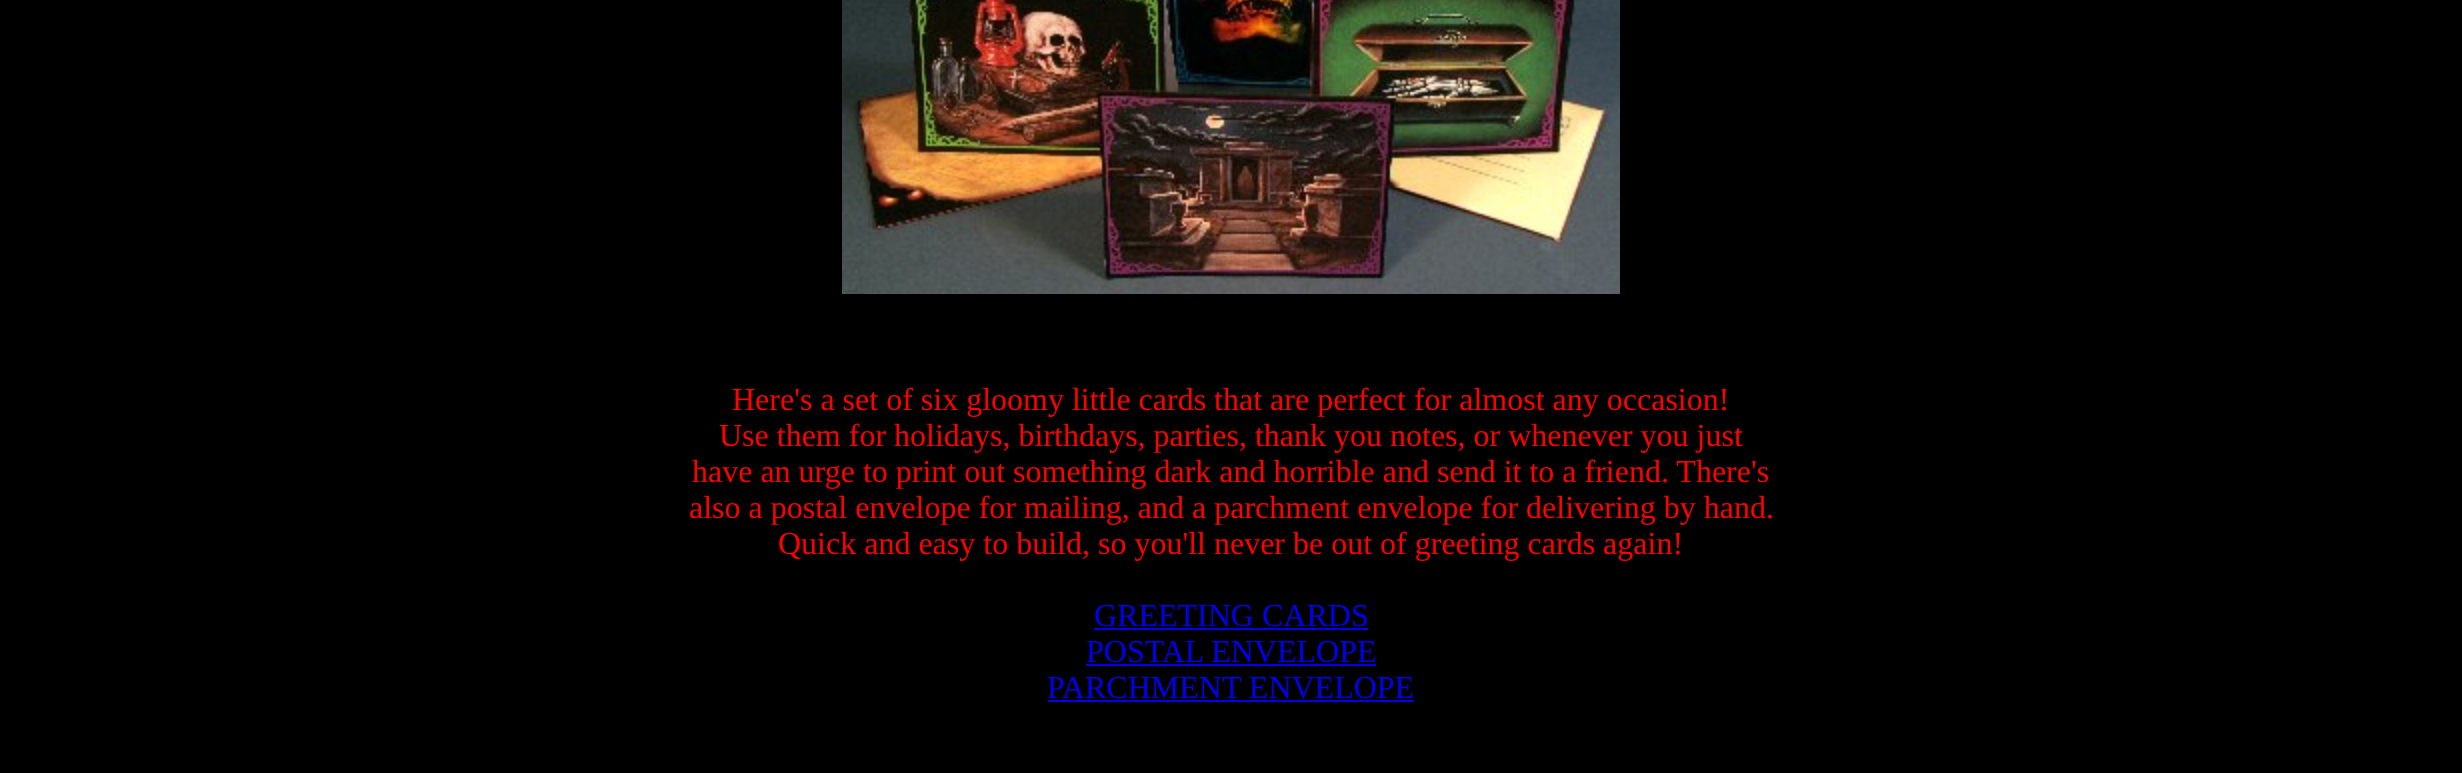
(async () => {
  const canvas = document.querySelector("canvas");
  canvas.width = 2462;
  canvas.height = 773;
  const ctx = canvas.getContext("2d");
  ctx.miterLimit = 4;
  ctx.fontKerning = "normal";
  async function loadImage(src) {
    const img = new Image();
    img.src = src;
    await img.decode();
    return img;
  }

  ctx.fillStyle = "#000000";
  ctx.fillRect(0, 0, 2462, 773);
  ctx.drawImage(await loadImage("img/1.png"), 842, 0, 778, 294);
  for (const [x, y, w, h, color] of [
    [1094, 628, 274, 2, "#0000ee"],
    [1086, 664, 290, 2, "#0000ee"],
    [1048, 700, 366, 2, "#0000ee"],
  ]) {
    ctx.fillStyle = color;
    ctx.fillRect(x, y, w, h);
  }
  ctx.font = "32px Liberation Serif";
  ctx.fillStyle = "#ff0000";
  for (const [text, x, y] of [
    ["Here's a set of six gloomy little cards that are perfect for almost any occasion!", 732, 410],
    ["Use them for holidays, birthdays, parties, thank you notes, or whenever you just", 719, 446],
    ["have an urge to print out something dark and horrible and send it to a friend. There's", 692, 482],
    ["also a postal envelope for mailing, and a parchment envelope for delivering by hand.", 689, 518],
    ["Quick and easy to build, so you'll never be out of greeting cards again!", 778, 554],
  ]) {
    ctx.fillText(text, x, y);
  }
  ctx.fillStyle = "#0000ee";
  for (const [text, x, y] of [
    ["GREETING CARDS", 1094, 626],
    ["POSTAL ENVELOPE", 1086, 662],
    ["PARCHMENT ENVELOPE", 1047, 698],
  ]) {
    ctx.fillText(text, x, y);
  }
})();
